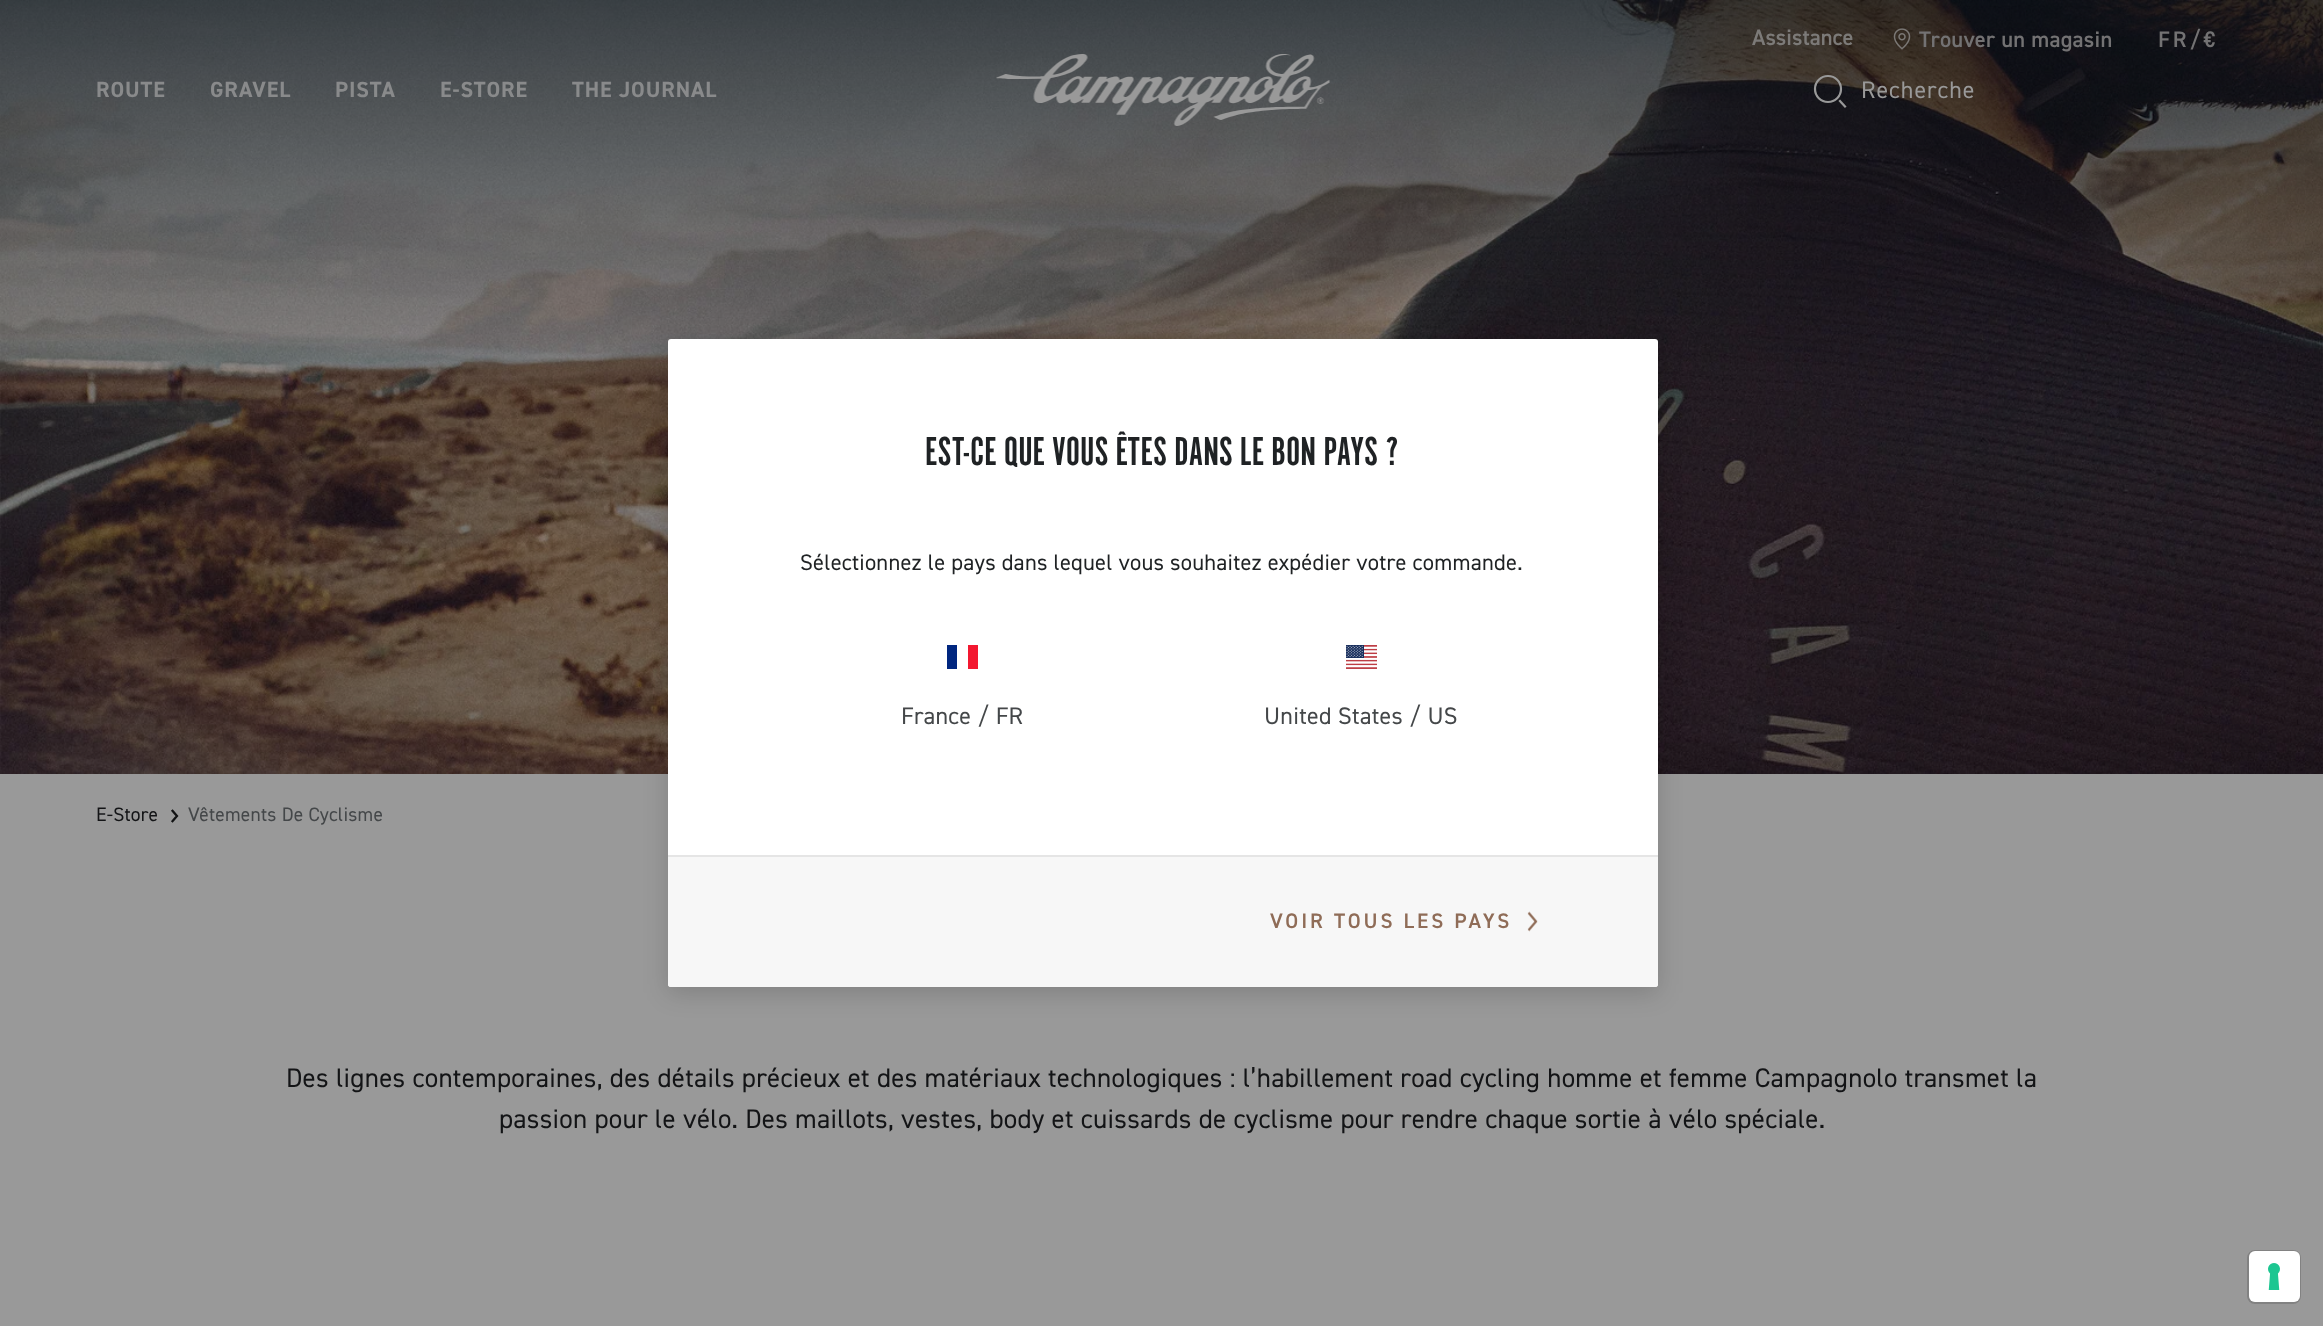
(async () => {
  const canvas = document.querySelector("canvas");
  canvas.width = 2323;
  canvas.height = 1326;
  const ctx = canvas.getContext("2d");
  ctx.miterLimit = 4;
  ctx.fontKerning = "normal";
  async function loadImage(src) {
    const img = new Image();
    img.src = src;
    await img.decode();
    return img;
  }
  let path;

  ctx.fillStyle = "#999999";
  ctx.fillRect(0, 0, 2323, 1326);
  ctx.drawImage(await loadImage("img/5.png"), 0, 0, 2323, 774);
  ctx.drawImage(await loadImage("img/1.png"), 1893, 28, 18, 22);
  ctx.drawImage(await loadImage("img/2.png"), 996, 54, 334, 72);
  ctx.beginPath();
  ctx.arc(1828, 89, 13, 0, Math.PI * 2);
  ctx.strokeStyle = "#999999";
  ctx.lineWidth = 2.2;
  ctx.stroke();
  path = new Path2D("M1845 106.5L1840 101");
  ctx.lineCap = "square";
  ctx.stroke(path);
  ctx.fillStyle = "rgba(0, 0, 0, 0.16)";
  ctx.filter = "blur(12px)";
  ctx.beginPath();
  ctx.roundRect(668, 345, 990, 648, 3);
  ctx.fill();
  ctx.filter = "none";
  ctx.fillStyle = "#ffffff";
  ctx.beginPath();
  ctx.roundRect(668, 339, 990, 648, 3);
  ctx.fill();
  ctx.fillStyle = "#00267f";
  ctx.fillRect(947, 645, 10, 24);
  ctx.fillStyle = "#f31830";
  ctx.fillRect(968, 645, 10, 24);
  ctx.drawImage(await loadImage("img/3.png"), 1346, 645, 31, 24);
  ctx.fillStyle = "#f7f7f7";
  ctx.beginPath();
  ctx.roundRect(668, 855, 990, 132, [0, 0, 3, 3]);
  ctx.fill();
  ctx.fillStyle = "#e5e5e5";
  ctx.fillRect(668, 855, 990, 2);
  ctx.drawImage(await loadImage("img/4.png"), 1527, 911, 11, 21);
  ctx.drawImage(await loadImage("img/6.png"), 171, 809, 8, 14);
  ctx.beginPath();
  ctx.roundRect(2248, 1251, 52, 52, 7);
  ctx.strokeStyle = "#828282";
  ctx.lineWidth = 2;
  ctx.stroke();
  ctx.fillStyle = "#ffffff";
  ctx.beginPath();
  ctx.roundRect(2249, 1251, 51, 51, 6);
  ctx.fill();
  ctx.drawImage(await loadImage("img/7.png"), 2268, 1263, 12, 27);
  ctx.font = "600 22.5px 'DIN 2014'";
  ctx.fillStyle = "#7c7a78";
  ctx.fillText("Assistance", 1752, 45);
  ctx.letterSpacing = "0.25px";
  ctx.fillStyle = "#737273";
  ctx.fillText("Trouver un magasin", 1919, 47);
  ctx.letterSpacing = "3px";
  ctx.fillText("FR/€", 2158, 47);
  ctx.letterSpacing = "0.9px";
  ctx.font = "bold 22px 'DIN 2014'";
  ctx.fillStyle = "#898a8b";
  for (const [text, x, y] of [
    ["ROUTE", 96, 97],
    ["GRAVEL", 210, 97],
    ["PISTA", 335, 97],
    ["E-STORE", 440, 97],
    ["THE JOURNAL", 572, 97],
  ]) {
    ctx.fillText(text, x, y);
  }
  ctx.letterSpacing = "1px";
  ctx.font = "24px 'DIN 2014'";
  ctx.fillStyle = "#999999";
  ctx.fillText("Recherche", 1861, 98);
  ctx.letterSpacing = "0px";
  ctx.font = "42px 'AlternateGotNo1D'";
  ctx.fillStyle = "#1f2224";
  ctx.fillText("EST-CE QUE VOUS ÊTES DANS LE BON PAYS ?", 925, 465);
  ctx.letterSpacing = "0.22px";
  ctx.font = "22.5px 'DIN 2014'";
  ctx.fillText("Sélectionnez le pays dans lequel vous souhaitez expédier votre commande.", 800, 570);
  ctx.letterSpacing = "0.25px";
  ctx.font = "24px 'DIN 2014'";
  ctx.fillStyle = "#444749";
  ctx.fillText("France / FR", 901, 724);
  ctx.fillText("United States / US", 1264, 724);
  ctx.letterSpacing = "2.9px";
  ctx.font = "600 21px 'DIN 2014'";
  ctx.fillStyle = "#8f6c57";
  ctx.fillText("VOIR TOUS LES PAYS", 1270, 928);
  ctx.letterSpacing = "0.2px";
  ctx.font = "19.5px 'DIN 2014'";
  ctx.fillStyle = "#131416";
  ctx.fillText("E-Store", 96, 821);
  ctx.fillStyle = "#444749";
  ctx.fillText("Vêtements De Cyclisme", 188, 821);
  ctx.letterSpacing = "0.27px";
  ctx.font = "27px 'DIN 2014'";
  ctx.fillStyle = "#131416";
  ctx.fillText("Des lignes contemporaines, des détails précieux et des matériaux technologiques : l’habillement road cycling homme et femme Campagnolo transmet la", 286, 1087);
  ctx.fillText("passion pour le vélo. Des maillots, vestes, body et cuissards de cyclisme pour rendre chaque sortie à vélo spéciale.", 499, 1128);
})();
